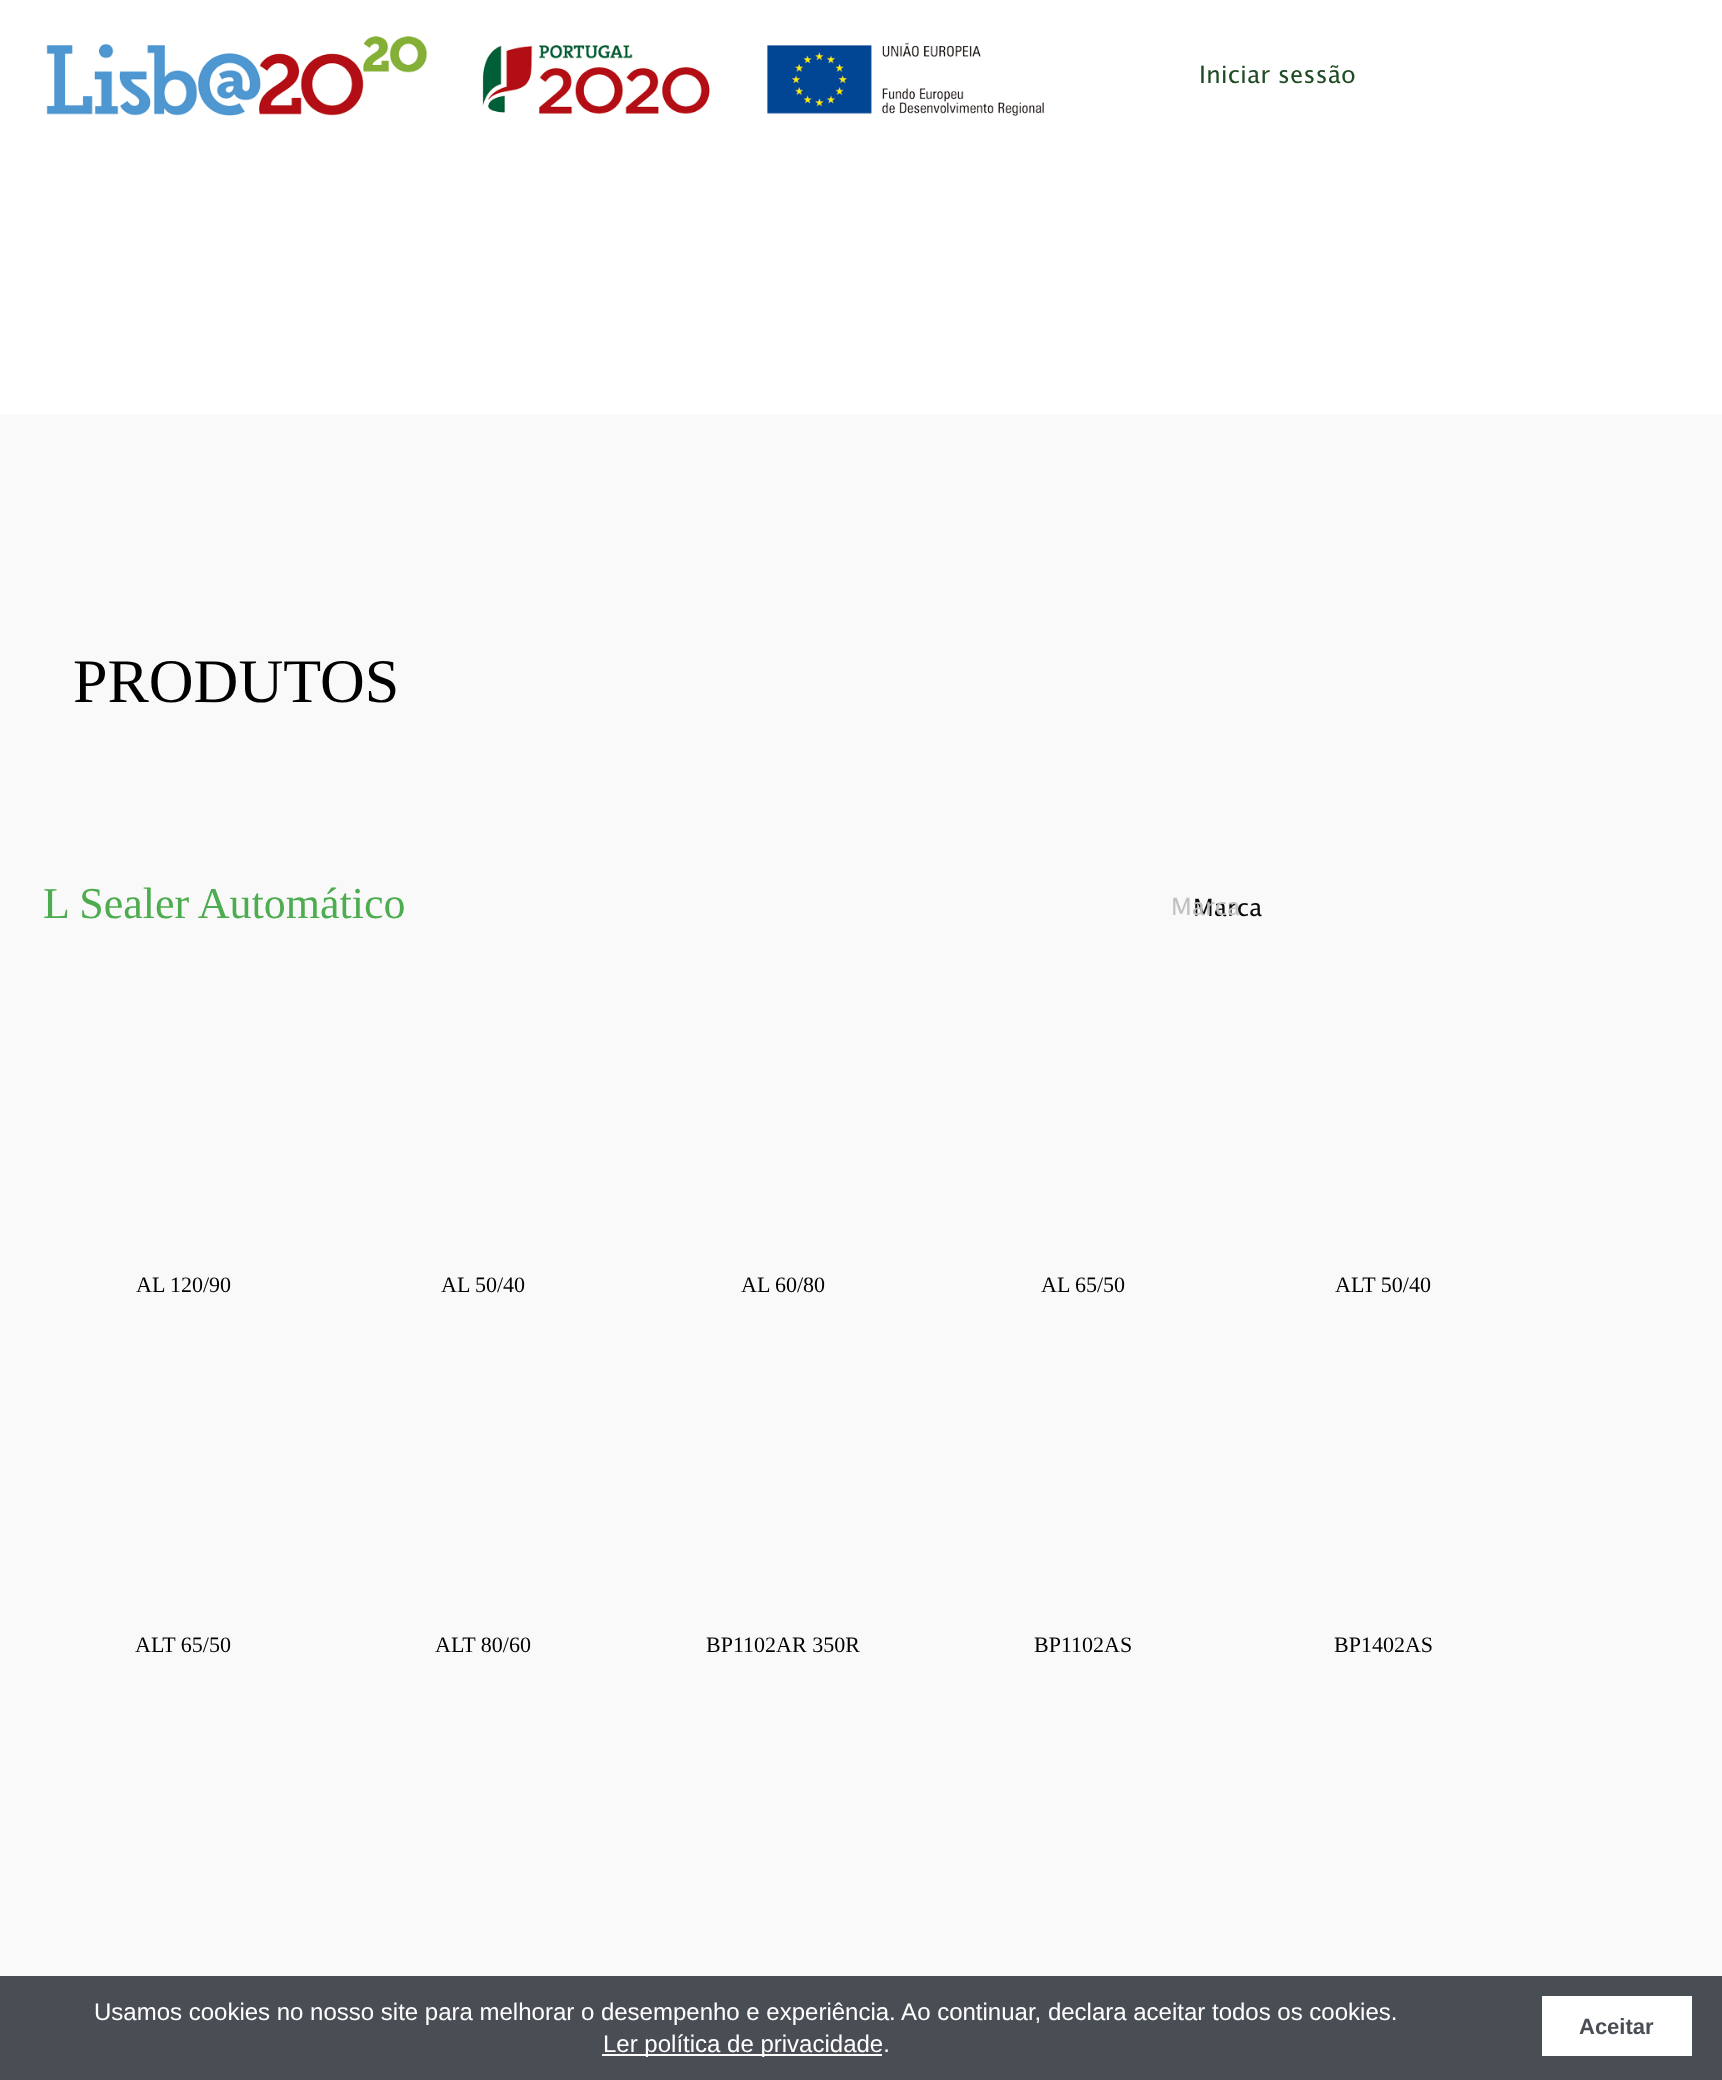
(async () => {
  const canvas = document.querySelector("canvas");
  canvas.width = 1722;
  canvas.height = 2080;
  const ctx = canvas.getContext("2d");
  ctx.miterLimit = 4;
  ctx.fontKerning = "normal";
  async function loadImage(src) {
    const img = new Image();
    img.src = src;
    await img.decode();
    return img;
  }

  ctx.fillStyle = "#ffffff";
  ctx.fillRect(0, 0, 1722, 2080);
  ctx.drawImage(await loadImage("img/1.png"), 46, 36, 998, 80);
  for (const [x, y, w, h, color] of [
    [0, 414, 1722, 1562, "#f9f9f9"],
    [0, 1976, 1722, 104, "#494e54"],
    [602, 2054, 280, 2, "#ffffff"],
    [1542, 1996, 150, 60, "#ffffff"],
  ]) {
    ctx.fillStyle = color;
    ctx.fillRect(x, y, w, h);
  }
  ctx.font = "500 24px Lucida Grande";
  ctx.fillStyle = "#204c25";
  ctx.fillText("Iniciar sessão", 1199, 83);
  ctx.font = "62px Liberation Serif";
  ctx.fillStyle = "#000000";
  ctx.fillText("PRODUTOS", 73, 702);
  ctx.font = "44px Liberation Serif";
  ctx.fillStyle = "#4dac50";
  ctx.fillText("L Sealer Automático", 43, 918);
  ctx.font = "500 24px Lucida Grande";
  ctx.fillStyle = "#0a0a0a";
  ctx.fillText("Marca", 1193, 916);
  ctx.fillStyle = "#c0c0c0";
  ctx.fillText("Marca", 1171, 915);
  ctx.font = "22px Liberation Serif";
  ctx.fillStyle = "#000000";
  for (const [text, x, y] of [
    ["AL 120/90", 136, 1292],
    ["AL 50/40", 441, 1292],
    ["AL 60/80", 741, 1292],
    ["AL 65/50", 1041, 1292],
    ["ALT 50/40", 1335, 1292],
    ["ALT 65/50", 135, 1652],
    ["ALT 80/60", 435, 1652],
    ["BP1102AR 350R", 706, 1652],
    ["BP1102AS", 1034, 1652],
    ["BP1402AS", 1334, 1652],
  ]) {
    ctx.fillText(text, x, y);
  }
  ctx.font = "24px Liberation Sans";
  ctx.fillStyle = "#ffffff";
  ctx.fillText("Usamos cookies no nosso site para melhorar o desempenho e experiência. Ao continuar, declara aceitar todos os cookies.", 94, 2020);
  ctx.fillText("Ler política de privacidade.", 603, 2052);
  ctx.font = "bold 22px Liberation Sans";
  ctx.fillStyle = "#494e54";
  ctx.fillText("Aceitar", 1579, 2034);
})();
